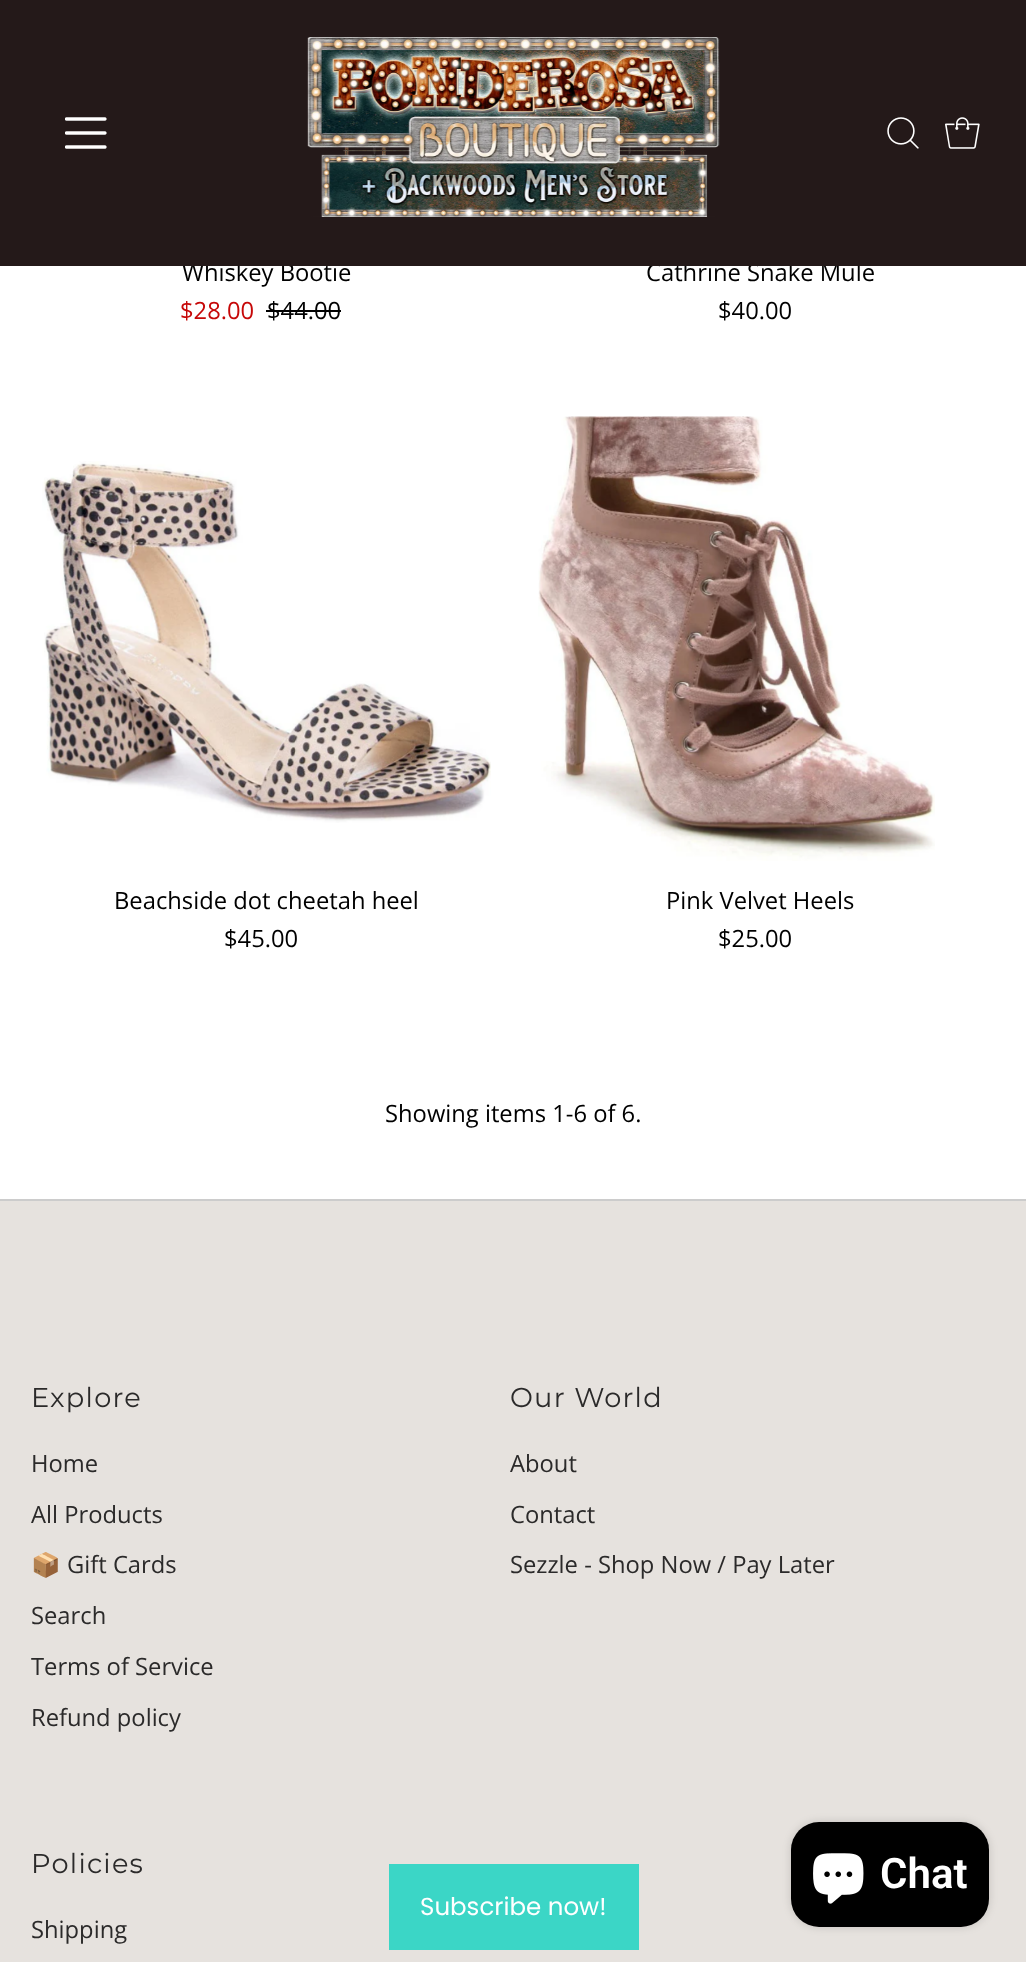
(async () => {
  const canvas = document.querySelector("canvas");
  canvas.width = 1026;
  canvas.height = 1962;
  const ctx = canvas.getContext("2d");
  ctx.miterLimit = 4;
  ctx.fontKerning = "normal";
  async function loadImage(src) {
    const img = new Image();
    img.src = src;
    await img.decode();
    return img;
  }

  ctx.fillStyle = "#ffffff";
  ctx.fillRect(0, 0, 1026, 1962);
  ctx.fillStyle = "#000000";
  ctx.fillRect(266, 310, 75, 2);
  ctx.drawImage(await loadImage("img/5.png"), 42, 461, 449, 362);
  ctx.drawImage(await loadImage("img/6.png"), 538, 416, 397, 445);
  ctx.fillStyle = "#e6e2de";
  ctx.fillRect(0, 1201, 1026, 761);
  ctx.fillStyle = "#cccccc";
  ctx.fillRect(0, 1199, 1026, 2);
  ctx.fillStyle = "rgba(0, 0, 0, 0.15)";
  ctx.filter = "blur(4.5px)";
  ctx.beginPath();
  ctx.roundRect(791, 1822, 198, 105, 28);
  ctx.fill();
  ctx.filter = "none";
  ctx.fillStyle = "#000000";
  ctx.beginPath();
  ctx.roundRect(791, 1822, 198, 105, 28);
  ctx.fill();
  ctx.drawImage(await loadImage("img/7.png"), 813, 1853, 51, 51);
  ctx.fillStyle = "#3bd6c6";
  ctx.fillRect(389, 1864, 250, 86);
  ctx.font = "23.75px Open Sans";
  ctx.fillStyle = "#000000";
  ctx.fillText("Whiskey Bootie", 182, 281);
  ctx.fillStyle = "#c60808";
  ctx.fillText("$28.00", 180, 319);
  ctx.fillStyle = "#000000";
  ctx.fillText("$44.00", 267, 319);
  ctx.fillText("Cathrine Snake Mule", 646, 281);
  ctx.fillStyle = "#241919";
  ctx.fillRect(0, 0, 1026, 266);
  ctx.drawImage(await loadImage("img/4.png"), 945, 117, 35, 32);
  ctx.drawImage(await loadImage("img/2.png"), 307, 37, 413, 180);
  ctx.drawImage(await loadImage("img/3.png"), 887, 117, 32, 32);
  ctx.drawImage(await loadImage("img/1.png"), 65, 117, 42, 32);
  ctx.fillStyle = "#000000";
  for (const [text, x, y] of [
    ["$40.00", 718, 319],
    ["Beachside dot cheetah heel", 114, 909],
    ["$45.00", 224, 947],
    ["Pink Velvet Heels", 666, 909],
    ["$25.00", 718, 947],
    ["Showing items 1-6 of 6.", 385, 1122],
  ]) {
    ctx.fillText(text, x, y);
  }
  ctx.letterSpacing = "1.25px";
  ctx.font = "27.25px Montserrat";
  ctx.fillStyle = "#2b2a2a";
  ctx.fillText("Explore", 31, 1407);
  ctx.letterSpacing = "0px";
  ctx.font = "23.75px Open Sans";
  ctx.fillText("Home", 31, 1472);
  ctx.fillText("All Products", 31, 1523);
  ctx.font = "23.75px Noto Color Emoji";
  ctx.fillText("📦", 31, 1573);
  ctx.font = "23.75px Open Sans";
  for (const [text, x, y] of [
    ["Gift Cards", 67, 1573],
    ["Search", 31, 1624],
    ["Terms of Service", 31, 1675],
    ["Refund policy", 31, 1726],
  ]) {
    ctx.fillText(text, x, y);
  }
  ctx.letterSpacing = "1.25px";
  ctx.font = "27.25px Montserrat";
  ctx.fillText("Our World", 510, 1407);
  ctx.letterSpacing = "0px";
  ctx.font = "23.75px Open Sans";
  for (const [text, x, y] of [
    ["About", 510, 1472],
    ["Contact", 510, 1523],
    ["Sezzle - Shop Now / Pay Later", 510, 1573],
  ]) {
    ctx.fillText(text, x, y);
  }
  ctx.letterSpacing = "1.25px";
  ctx.font = "27.25px Montserrat";
  ctx.fillText("Policies", 31, 1873);
  ctx.letterSpacing = "0px";
  ctx.font = "23.75px Open Sans";
  ctx.fillText("Shipping", 31, 1938);
  ctx.font = "600 42px Roboto";
  ctx.fillStyle = "#ffffff";
  ctx.fillText("Chat", 880, 1888);
  ctx.font = "24.5px Poppins";
  ctx.fillText("Subscribe now!", 420, 1915);
})();
